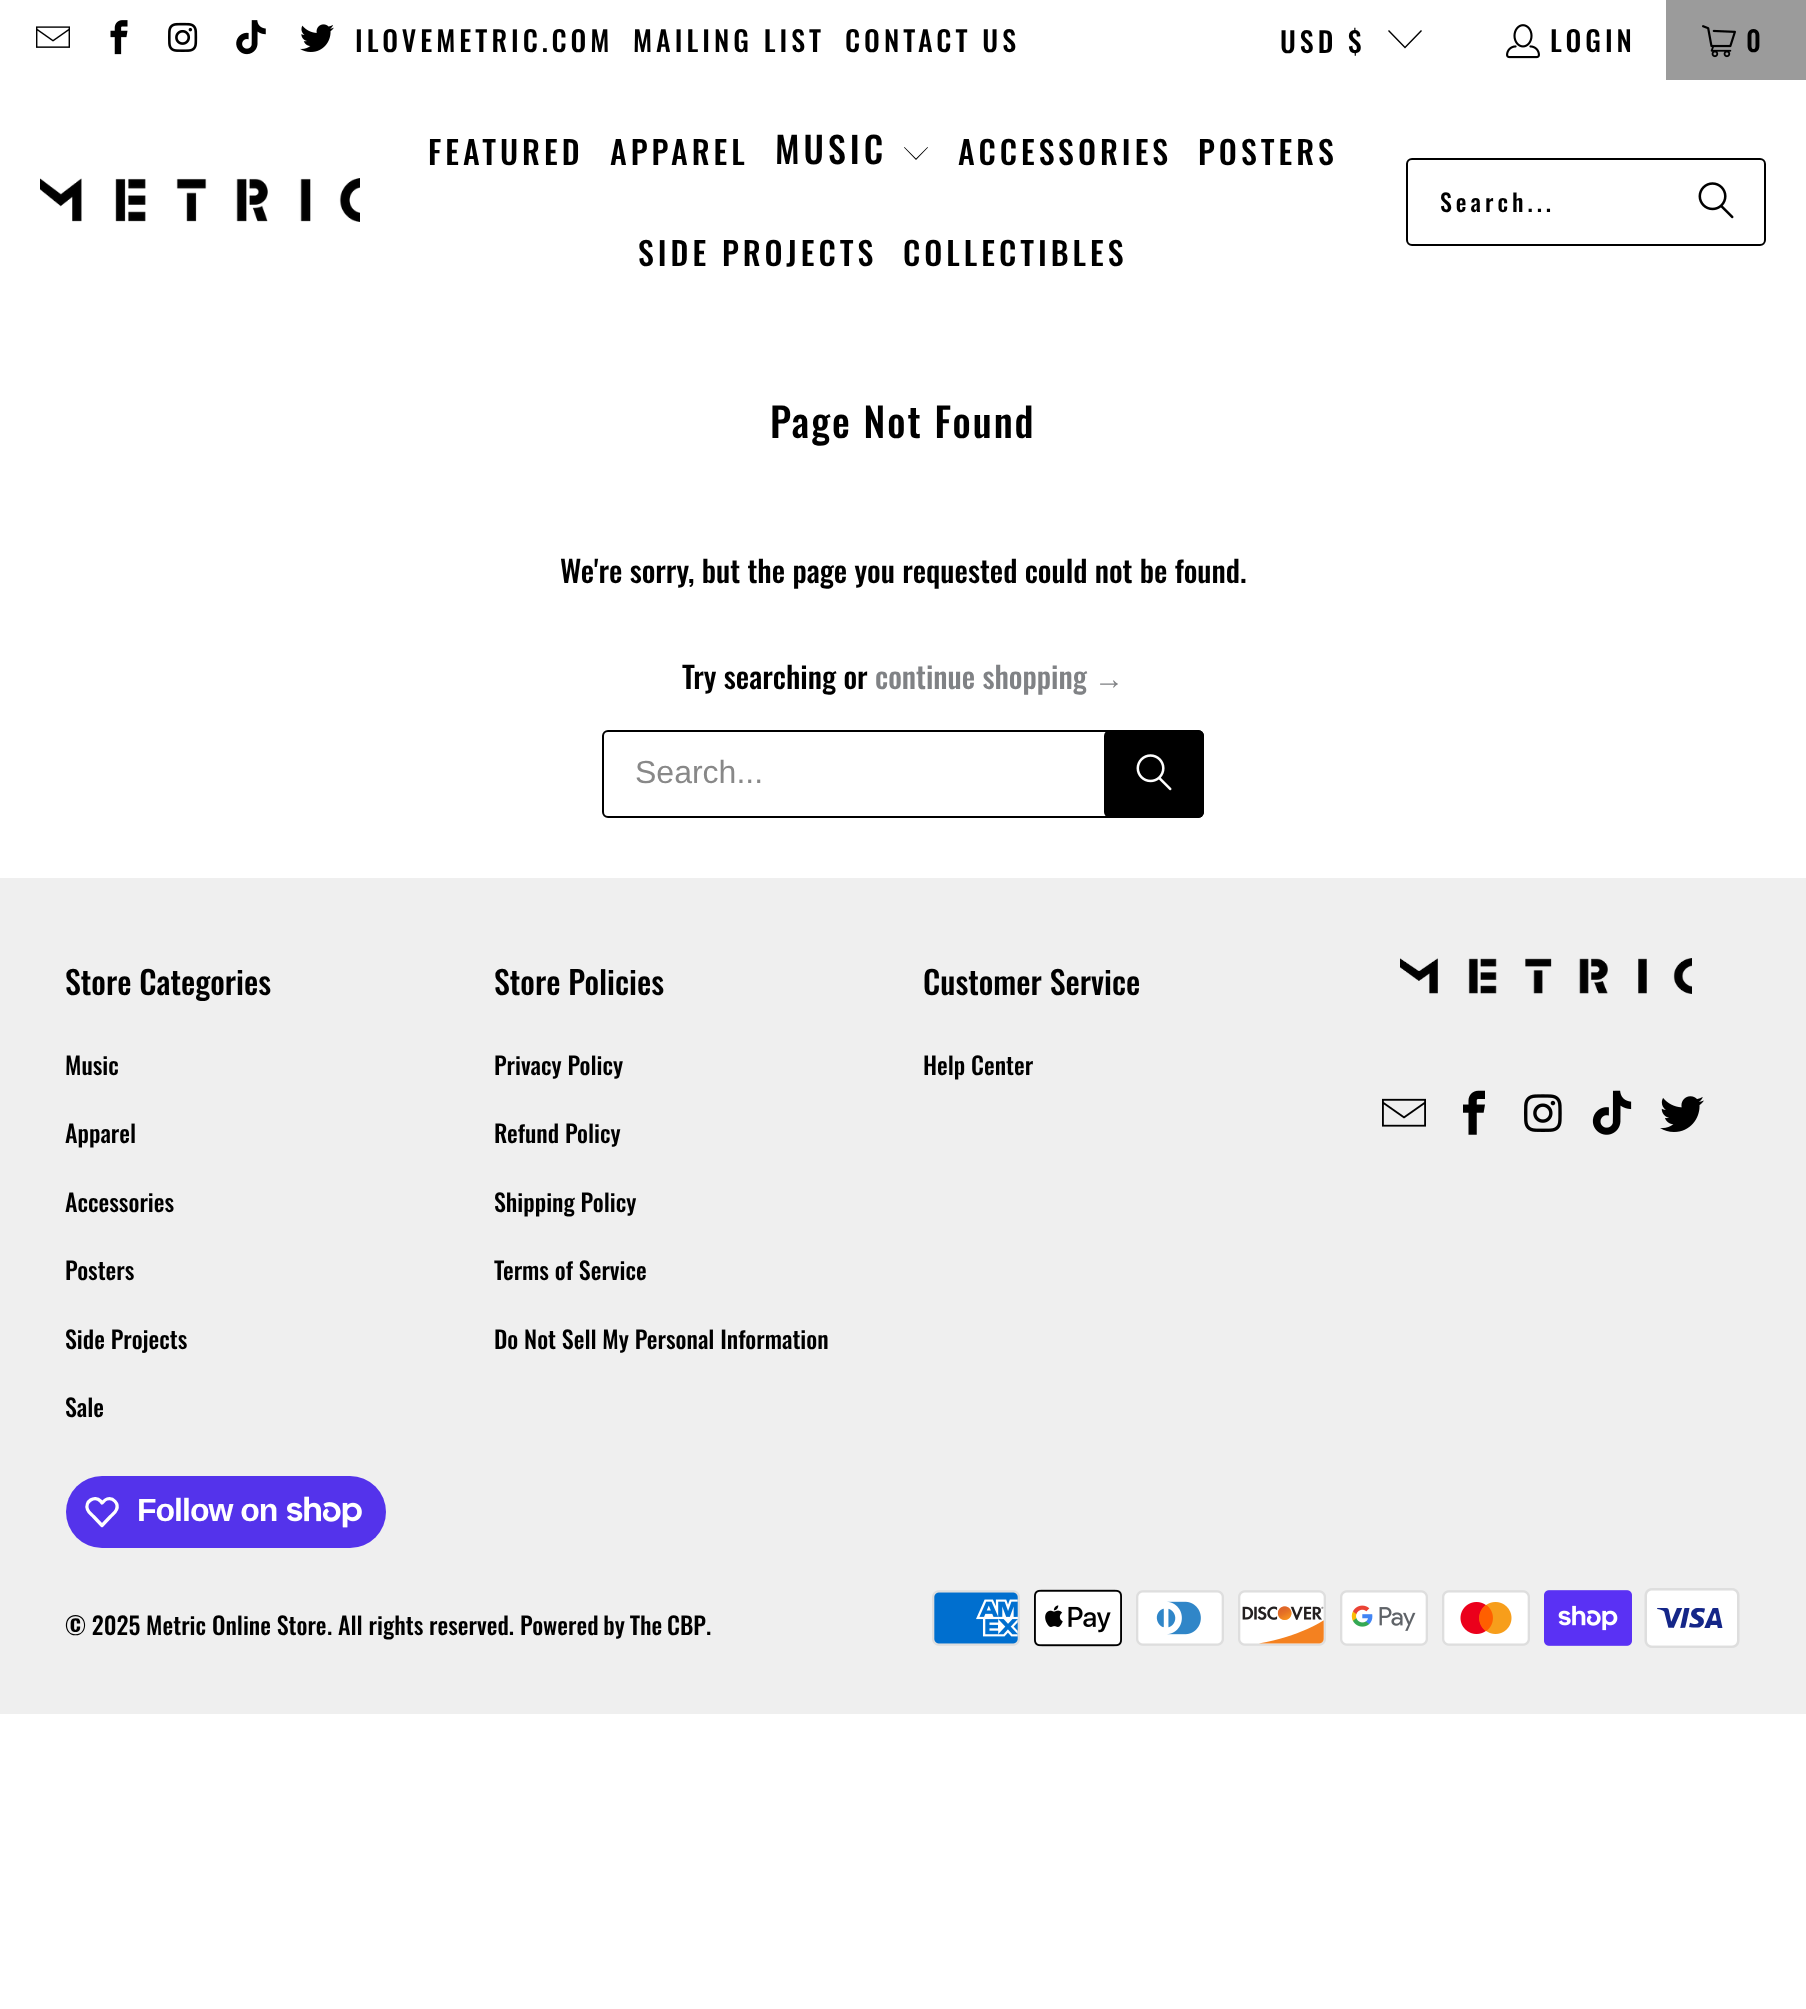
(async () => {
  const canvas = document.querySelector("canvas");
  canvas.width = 1806;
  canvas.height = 2009;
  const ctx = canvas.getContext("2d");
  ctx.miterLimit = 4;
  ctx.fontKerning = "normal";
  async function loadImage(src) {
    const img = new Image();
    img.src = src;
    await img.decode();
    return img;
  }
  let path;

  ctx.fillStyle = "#ffffff";
  ctx.fillRect(0, 0, 1806, 2009);
  ctx.drawImage(await loadImage("img/1.png"), 36, 26, 34, 22);
  ctx.drawImage(await loadImage("img/2.png"), 110, 20, 18, 35);
  ctx.drawImage(await loadImage("img/3.png"), 168, 22, 30, 30);
  ctx.drawImage(await loadImage("img/4.png"), 236, 20, 30, 35);
  ctx.drawImage(await loadImage("img/5.png"), 300, 24, 34, 28);
  ctx.fillStyle = "#000000";
  path = new Path2D("M1405 48.5L1388 31L1389 30L1405 46.5L1421 30L1422 31Z");
  ctx.fill(path);
  ctx.drawImage(await loadImage("img/6.png"), 1506, 24, 34, 35);
  ctx.fillStyle = "#9b9b9b";
  ctx.fillRect(1666, 0, 140, 80);
  ctx.drawImage(await loadImage("img/7.png"), 1702, 25, 34, 33);
  ctx.drawImage(await loadImage("img/8.png"), 40, 178, 320, 44);
  ctx.fillStyle = "#000000";
  path = new Path2D("M916 160L904 147.5L904.5 147L916 158.5L927.5 147L928 147.5Z");
  ctx.fill(path);
  ctx.beginPath();
  ctx.roundRect(1407, 159, 358, 86, 5);
  ctx.strokeStyle = "#000000";
  ctx.lineWidth = 2;
  ctx.stroke();
  ctx.drawImage(await loadImage("img/9.png"), 1698, 182, 36, 37);
  ctx.beginPath();
  ctx.roundRect(603, 731, 600, 86, 5);
  ctx.stroke();
  ctx.beginPath();
  ctx.roundRect(1104, 730, 100, 88, 6);
  ctx.fill();
  ctx.drawImage(await loadImage("img/10.png"), 1136, 754, 36, 37);
  ctx.fillStyle = "#efefef";
  ctx.fillRect(0, 878, 1806, 836);
  ctx.drawImage(await loadImage("img/11.png"), 1400, 958, 292, 36);
  ctx.drawImage(await loadImage("img/12.png"), 1382, 1098, 44, 29);
  ctx.drawImage(await loadImage("img/13.png"), 1463, 1090, 22, 45);
  ctx.drawImage(await loadImage("img/14.png"), 1524, 1094, 38, 38);
  ctx.drawImage(await loadImage("img/15.png"), 1592, 1090, 40, 45);
  ctx.drawImage(await loadImage("img/16.png"), 1660, 1096, 44, 36);
  ctx.fillStyle = "#5433eb";
  ctx.beginPath();
  ctx.roundRect(66, 1476, 320, 72, 36);
  ctx.fill();
  path = new Path2D("M100.5 1501L102 1503C103.5 1501.5 105 1499.5 107 1499C113 1497 119 1503.5 116.5 1509.5C115.5 1512.5 112.5 1514.5 110.5 1516.5L102 1525.5L93.5 1516.5C91.5 1514.5 88.5 1512.5 87.5 1509.5C84.5 1501.5 94.5 1495 100.5 1501Z");
  ctx.strokeStyle = "#ffffff";
  ctx.lineWidth = 3.3;
  ctx.lineJoin = "round";
  ctx.stroke(path);
  ctx.drawImage(await loadImage("img/17.png"), 287, 1496, 75, 32);
  ctx.drawImage(await loadImage("img/18.png"), 932, 1590, 88, 56);
  ctx.drawImage(await loadImage("img/19.png"), 1034, 1589, 88, 58);
  ctx.drawImage(await loadImage("img/20.png"), 1136, 1590, 88, 56);
  ctx.drawImage(await loadImage("img/21.png"), 1238, 1590, 88, 56);
  ctx.drawImage(await loadImage("img/22.png"), 1340, 1590, 88, 56);
  ctx.drawImage(await loadImage("img/23.png"), 1442, 1590, 88, 56);
  ctx.drawImage(await loadImage("img/24.png"), 1544, 1590, 88, 56);
  ctx.drawImage(await loadImage("img/25.png"), 1644, 1588, 96, 60);
  ctx.letterSpacing = "4px";
  ctx.font = "500 28px Oswald";
  ctx.fillStyle = "#000000";
  for (const [text, x, y] of [
    ["ILOVEMETRIC.COM", 355, 52],
    ["MAILING LIST", 633, 52],
    ["CONTACT US", 845, 52],
    ["USD $", 1280, 53],
    ["LOGIN", 1550, 52],
    ["0", 1746, 52],
  ]) {
    ctx.fillText(text, x, y);
  }
  ctx.font = "500 32px Oswald";
  ctx.fillText("FEATURED", 428, 165);
  ctx.fillText("APPAREL", 610, 165);
  ctx.font = "500 36px Oswald";
  ctx.fillText("MUSIC", 775, 164);
  ctx.font = "500 32px Oswald";
  for (const [text, x, y] of [
    ["ACCESSORIES", 958, 165],
    ["POSTERS", 1198, 165],
    ["SIDE PROJECTS", 638, 266],
    ["COLLECTIBLES", 903, 266],
  ]) {
    ctx.fillText(text, x, y);
  }
  ctx.font = "500 24px Oswald";
  ctx.fillText("Search...", 1440, 212);
  ctx.letterSpacing = "2px";
  ctx.font = "500 40px Oswald";
  ctx.fillText("Page Not Found", 770, 438);
  ctx.letterSpacing = "0px";
  ctx.font = "500 30px Oswald";
  ctx.fillText("We're sorry, but the page you requested could not be found.", 560, 583);
  ctx.fillText("Try searching or", 682, 689);
  ctx.fillStyle = "#808285";
  ctx.fillText("continue shopping", 875, 689);
  ctx.font = "30px Liberation Sans";
  ctx.fillText("→", 1094, 689);
  ctx.font = "32px Liberation Sans";
  ctx.fillStyle = "#888888";
  ctx.fillText("Search...", 635, 783);
  ctx.font = "500 32px Oswald";
  ctx.fillStyle = "#000000";
  ctx.fillText("Store Categories", 65, 995);
  ctx.font = "500 24px Oswald";
  for (const [text, x, y] of [
    ["Music", 65, 1075],
    ["Apparel", 65, 1143],
    ["Accessories", 65, 1212],
    ["Posters", 65, 1280],
    ["Side Projects", 65, 1349],
    ["Sale", 65, 1417],
  ]) {
    ctx.fillText(text, x, y);
  }
  ctx.font = "500 32px Oswald";
  ctx.fillText("Store Policies", 494, 995);
  ctx.font = "500 24px Oswald";
  for (const [text, x, y] of [
    ["Privacy Policy", 494, 1075],
    ["Refund Policy", 494, 1143],
    ["Shipping Policy", 494, 1212],
    ["Terms of Service", 494, 1280],
    ["Do Not Sell My Personal Information", 494, 1349],
  ]) {
    ctx.fillText(text, x, y);
  }
  ctx.font = "500 32px Oswald";
  ctx.fillText("Customer Service", 923, 995);
  ctx.font = "500 24px Oswald";
  ctx.fillText("Help Center", 923, 1075);
  ctx.letterSpacing = "-1px";
  ctx.font = "bold 32px Liberation Sans";
  ctx.fillStyle = "#ffffff";
  ctx.fillText("Follow on", 137, 1521);
  ctx.letterSpacing = "0px";
  ctx.font = "500 24px Oswald";
  ctx.fillStyle = "#000000";
  ctx.fillText("© 2025 Metric Online Store", 65, 1635);
  ctx.fillText(". All rights reserved.", 327, 1635);
  ctx.wordSpacing = "-1px";
  ctx.fillText("Powered by The CBP", 520, 1635);
  ctx.wordSpacing = "0px";
  ctx.fillText(".", 706, 1635);
})();
